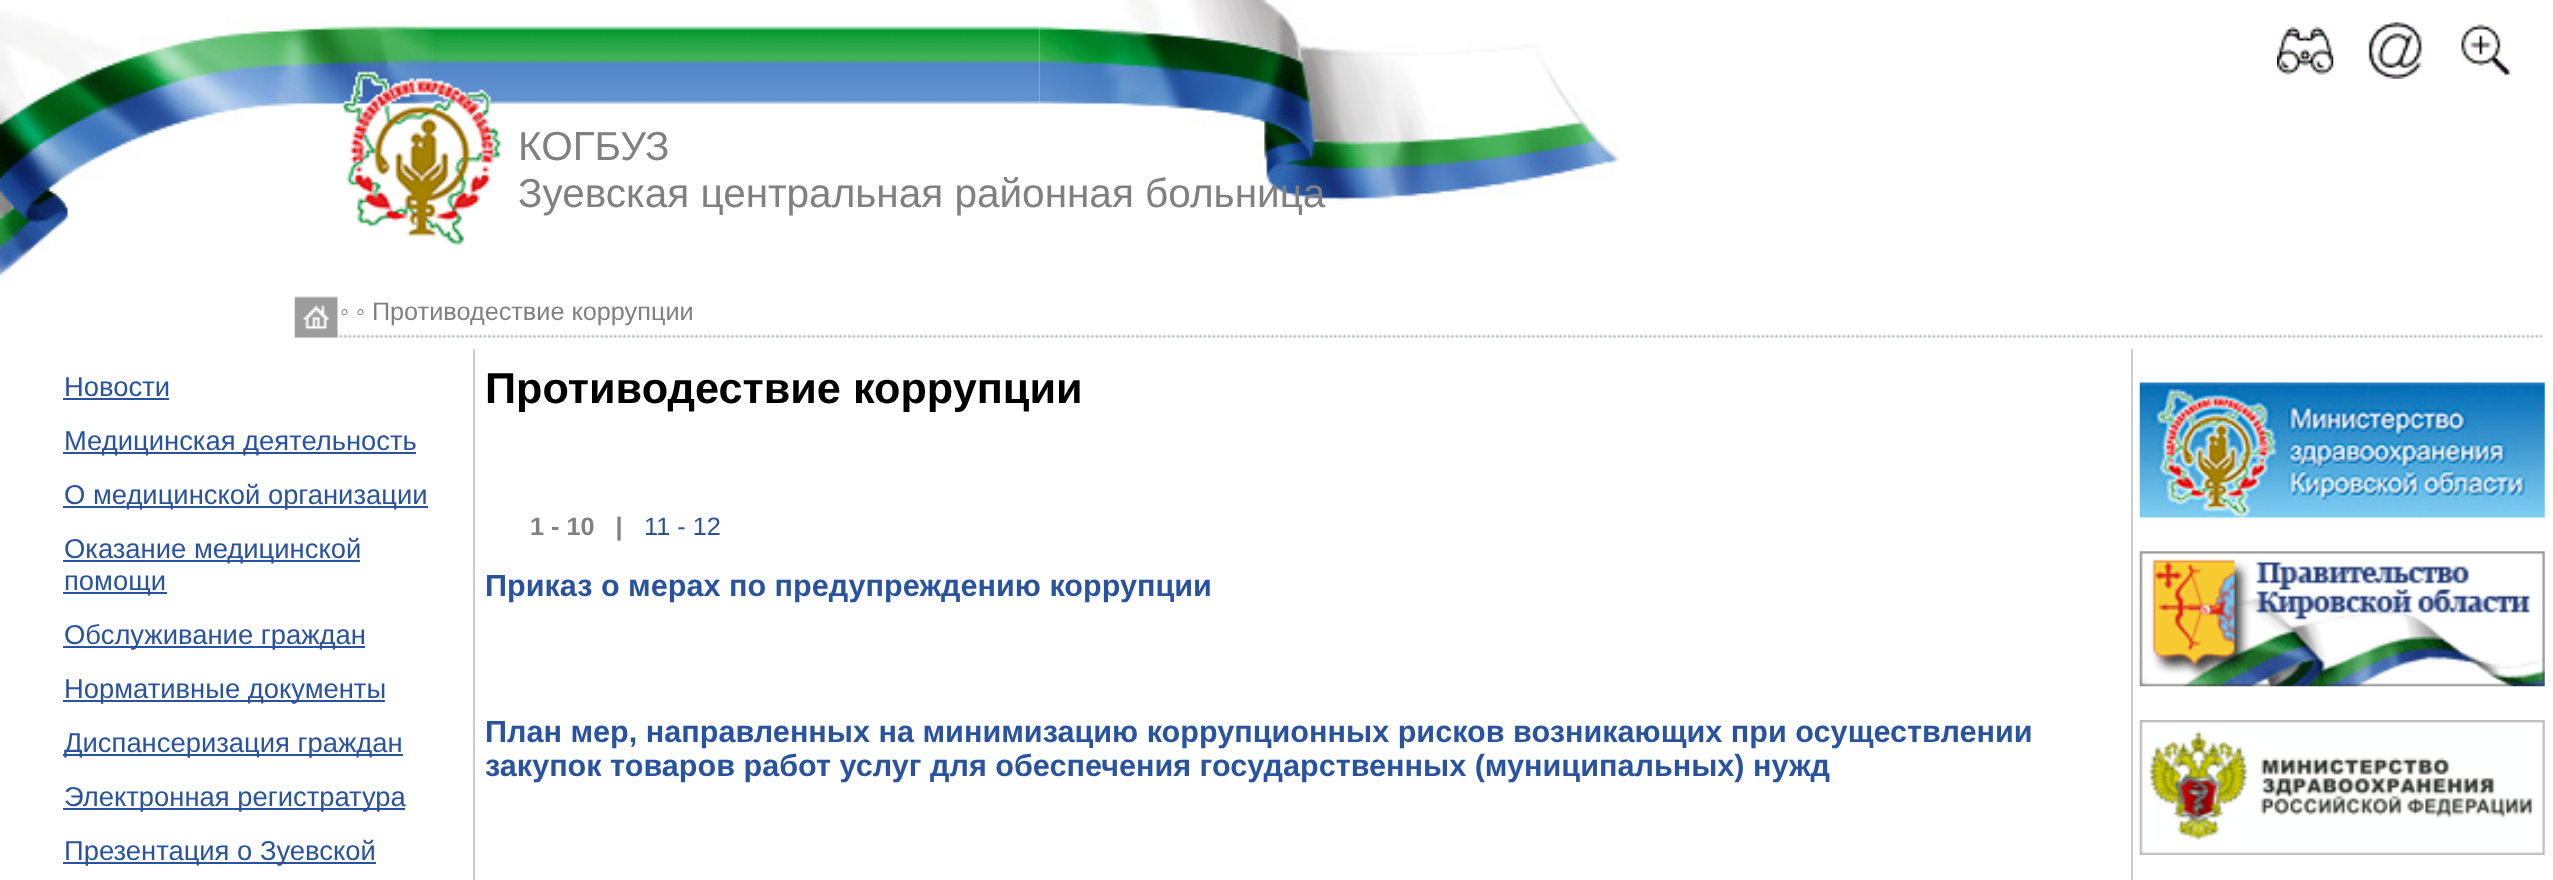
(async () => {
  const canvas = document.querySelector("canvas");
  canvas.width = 2553;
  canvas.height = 880;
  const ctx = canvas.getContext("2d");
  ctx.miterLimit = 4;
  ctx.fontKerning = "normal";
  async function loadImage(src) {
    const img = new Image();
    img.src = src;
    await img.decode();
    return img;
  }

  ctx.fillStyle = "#ffffff";
  ctx.fillRect(0, 0, 2553, 880);
  ctx.drawImage(await loadImage("img/3.png"), 434, 26, 606, 79);
  ctx.drawImage(await loadImage("img/4.png"), 225, 19, 209, 107);
  ctx.drawImage(await loadImage("img/1.png"), 341, 71, 162, 175);
  ctx.drawImage(await loadImage("img/2.png"), 0, 10, 225, 277);
  ctx.drawImage(await loadImage("img/5.png"), 1039, 0, 581, 201);
  ctx.drawImage(await loadImage("img/6.png"), 2277, 26, 57, 49);
  ctx.drawImage(await loadImage("img/7.png"), 2368, 22, 54, 57);
  ctx.drawImage(await loadImage("img/8.png"), 2461, 24, 51, 53);
  ctx.drawImage(await loadImage("img/9.png"), 294, 334, 2249, 4);
  ctx.drawImage(await loadImage("img/10.png"), 294, 296, 44, 43);
  for (const [x, y, w, h, color] of [
    [63, 398, 106, 2, "#29529f"],
    [63, 452, 353, 2, "#29529f"],
    [63, 506, 365, 2, "#29529f"],
    [63, 560, 297, 2, "#29529f"],
    [63, 592, 104, 2, "#29529f"],
    [63, 646, 302, 2, "#29529f"],
    [63, 700, 322, 2, "#29529f"],
    [63, 754, 340, 2, "#29529f"],
    [63, 808, 342, 2, "#29529f"],
    [63, 862, 313, 2, "#29529f"],
    [473, 349, 2, 531, "#cccccc"],
    [2131, 349, 2, 531, "#cccccc"],
  ]) {
    ctx.fillStyle = color;
    ctx.fillRect(x, y, w, h);
  }
  ctx.drawImage(await loadImage("img/11.png"), 2139, 382, 406, 136);
  ctx.drawImage(await loadImage("img/12.png"), 2139, 551, 406, 136);
  ctx.drawImage(await loadImage("img/13.png"), 2139, 720, 406, 135);
  ctx.font = "40.5px Liberation Sans";
  ctx.fillStyle = "#808080";
  ctx.fillText("КОГБУЗ", 518, 160);
  ctx.fillText("Зуевская центральная районная больница", 518, 207);
  ctx.font = "25.25px Liberation Sans";
  ctx.fillText("◦ ◦ Противодествие коррупции", 340, 320);
  ctx.font = "27.4px Liberation Sans";
  ctx.fillStyle = "#29529f";
  for (const [text, x, y] of [
    ["Новости", 64, 396],
    ["Медицинская деятельность", 64, 450],
    ["О медицинской организации", 64, 504],
    ["Оказание медицинской", 64, 558],
    ["помощи", 64, 590],
    ["Обслуживание граждан", 64, 644],
    ["Нормативные документы", 64, 698],
    ["Диспансеризация граждан", 64, 752],
    ["Электронная регистратура", 64, 806],
    ["Презентация о Зуевской", 64, 860],
  ]) {
    ctx.fillText(text, x, y);
  }
  ctx.font = "bold 43.25px Liberation Sans";
  ctx.fillStyle = "#000000";
  ctx.fillText("Противодествие коррупции", 485, 403);
  ctx.font = "bold 25.25px Liberation Sans";
  ctx.fillStyle = "#808080";
  ctx.fillText("1 - 10   |", 530, 535);
  ctx.font = "25.25px Liberation Sans";
  ctx.fillStyle = "#29529f";
  ctx.fillText("11 - 12", 644, 535);
  ctx.font = "bold 30.6px Liberation Sans";
  for (const [text, x, y] of [
    ["Приказ о мерах по предупреждению коррупции", 485, 596],
    ["План мер, направленных на минимизацию коррупционных рисков возникающих при осуществлении", 485, 742],
    ["закупок товаров работ услуг для обеспечения государственных (муниципальных) нужд", 485, 776],
  ]) {
    ctx.fillText(text, x, y);
  }
})();
